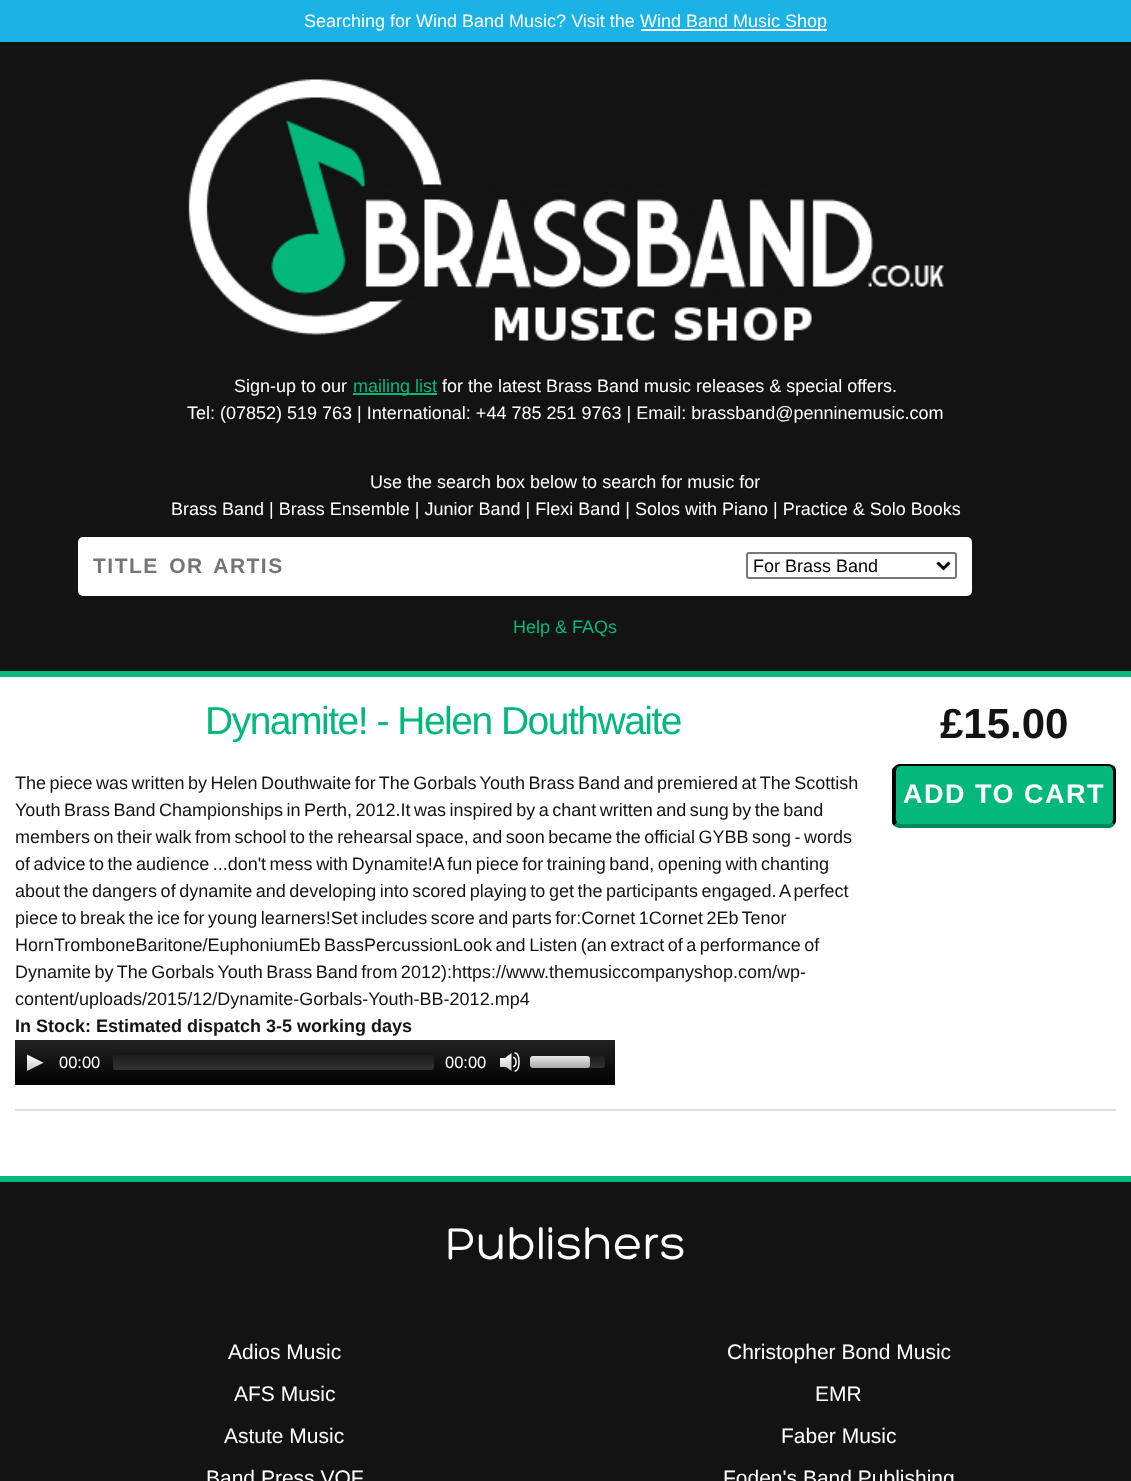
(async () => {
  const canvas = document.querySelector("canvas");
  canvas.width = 1131;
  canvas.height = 1481;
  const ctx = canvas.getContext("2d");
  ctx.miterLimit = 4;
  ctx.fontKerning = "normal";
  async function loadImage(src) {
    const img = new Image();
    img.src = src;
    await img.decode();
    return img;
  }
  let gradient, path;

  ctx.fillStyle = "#ffffff";
  ctx.fillRect(0, 0, 1131, 1481);
  for (const [x, y, w, h, color] of [
    [0, 0, 1131, 42, "#1bb2e6"],
    [641, 29, 186, 2, "#ffffff"],
    [0, 42, 1131, 629, "#131313"],
    [0, 671, 1131, 6, "#03b87b"],
  ]) {
    ctx.fillStyle = color;
    ctx.fillRect(x, y, w, h);
  }
  ctx.drawImage(await loadImage("img/1.png"), 188, 79, 756, 262);
  ctx.fillRect(353, 393, 84, 2);
  ctx.fillStyle = "#ffffff";
  ctx.beginPath();
  ctx.roundRect(78, 537, 894, 59, 5);
  ctx.fill();
  ctx.beginPath();
  ctx.roundRect(747, 553, 209, 25, 2);
  ctx.strokeStyle = "#767676";
  ctx.lineWidth = 2;
  ctx.stroke();
  path = new Path2D("M937.5 562.5L943.5 568.5L949.5 562.5");
  ctx.strokeStyle = "#000000";
  ctx.lineWidth = 3;
  ctx.stroke(path);
  ctx.fillStyle = "#dfdfdf";
  ctx.fillRect(15, 1109, 1101, 2);
  gradient = ctx.createLinearGradient(315, 1040, 315, 1085);
  gradient.addColorStop(0, "#232323");
  gradient.addColorStop(1, "#000000");
  ctx.fillStyle = gradient;
  ctx.fillRect(15, 1040, 600, 45);
  ctx.drawImage(await loadImage("img/2.png"), 27, 1054, 17, 17);
  gradient = ctx.createLinearGradient(273, 1055, 273, 1070);
  gradient.addColorStop(0, "rgba(30, 30, 30, 0.8)");
  gradient.addColorStop(1, "rgba(60, 60, 60, 0.8)");
  ctx.fillStyle = gradient;
  ctx.beginPath();
  ctx.roundRect(113, 1055, 321, 15, 3);
  ctx.fill();
  ctx.drawImage(await loadImage("img/3.png"), 500, 1052, 20, 20);
  gradient = ctx.createLinearGradient(567, 1056, 567, 1068);
  gradient.addColorStop(0, "rgba(30, 30, 30, 0.8)");
  gradient.addColorStop(1, "rgba(60, 60, 60, 0.8)");
  ctx.fillStyle = gradient;
  ctx.beginPath();
  ctx.roundRect(530, 1056, 75, 12, 3);
  ctx.fill();
  gradient = ctx.createLinearGradient(560, 1056, 560, 1068);
  gradient.addColorStop(0, "rgba(255, 255, 255, 0.9)");
  gradient.addColorStop(1, "rgba(200, 200, 200, 0.8)");
  ctx.fillStyle = gradient;
  ctx.beginPath();
  ctx.roundRect(530, 1056, 60, 12, 3);
  ctx.fill();
  ctx.fillStyle = "#03b87b";
  ctx.beginPath();
  ctx.roundRect(893, 764, 223, 64, 8);
  ctx.fill();
  ctx.fillStyle = "#000000";
  path = new Path2D("M900 764C898 764 896 765 895 766L897 768C898 767 899 766 900 766H1108C1110 766 1111 767 1112 768L1114 766C1112 765 1110 764 1108 764Z");
  ctx.fill(path);
  path = new Path2D("M1114 766C1115 767 1116 769 1116 771V820C1116 822 1115 824 1114 825L1112 822L1113 820V771L1112 768Z");
  ctx.fill(path);
  ctx.fillStyle = "#028a5c";
  path = new Path2D("M900 828H1108C1111 828 1113 827 1114 825L1112 822C1111 823 1110 824 1108 824H900C899 824 897 823 897 822L894 826C896 827 898 828 900 828Z");
  ctx.fill(path);
  ctx.fillStyle = "#000000";
  path = new Path2D("M892 769L895 766L897 768L896 771V812C896 813 895 819 897 822L894 826L892 823Z");
  ctx.fill(path);
  ctx.fillStyle = "#131313";
  ctx.fillRect(0, 1182, 1131, 299);
  ctx.fillStyle = "#03b87b";
  ctx.fillRect(0, 1176, 1131, 6);
  ctx.font = "18px Liberation Sans";
  ctx.fillStyle = "#ffffff";
  for (const [text, x, y] of [
    ["Searching for Wind Band Music? Visit the", 304, 27],
    ["Wind Band Music Shop", 640, 27],
    ["Sign-up to our", 234, 392],
  ]) {
    ctx.fillText(text, x, y);
  }
  ctx.fillStyle = "#03b87b";
  ctx.fillText("mailing list", 353, 392);
  ctx.fillStyle = "#ffffff";
  for (const [text, x, y] of [
    ["for the latest Brass Band music releases & special offers.", 442, 392],
    ["Tel: (07852) 519 763 | International: +44 785 251 9763 | Email: brassband@penninemusic.com", 187, 419],
    ["Use the search box below to search for music for", 370, 488],
    ["Brass Band | Brass Ensemble | Junior Band | Flexi Band | Solos with Piano | Practice & Solo Books", 171, 515],
  ]) {
    ctx.fillText(text, x, y);
  }
  ctx.letterSpacing = "1.5px";
  ctx.wordSpacing = "3px";
  ctx.font = "bold 21px Liberation Sans";
  ctx.fillStyle = "#757575";
  ctx.fillText("TITLE OR ARTIS", 93, 573);
  ctx.letterSpacing = "0px";
  ctx.wordSpacing = "0px";
  ctx.font = "18px Liberation Sans";
  ctx.fillStyle = "#000000";
  ctx.fillText("For Brass Band", 753, 572);
  ctx.fillStyle = "#03b87b";
  ctx.fillText("Help & FAQs", 513, 633);
  ctx.letterSpacing = "-1.5px";
  ctx.font = "39px Liberation Sans";
  ctx.fillText("Dynamite! - Helen Douthwaite", 205, 734);
  ctx.letterSpacing = "0px";
  ctx.wordSpacing = "-1.5px";
  ctx.font = "18px Liberation Sans";
  ctx.fillStyle = "#131313";
  for (const [text, x, y] of [
    ["The piece was written by Helen Douthwaite for The Gorbals Youth Brass Band and premiered at The Scottish", 15, 789],
    ["Youth Brass Band Championships in Perth, 2012.It was inspired by a chant written and sung by the band", 15, 816],
    ["members on their walk from school to the rehearsal space, and soon became the official GYBB song - words", 15, 843],
    ["of advice to the audience ...don't mess with Dynamite!A fun piece for training band, opening with chanting", 15, 870],
    ["about the dangers of dynamite and developing into scored playing to get the participants engaged. A perfect", 15, 897],
    ["piece to break the ice for young learners!Set includes score and parts for:Cornet 1Cornet 2Eb Tenor", 15, 924],
    ["HornTromboneBaritone/EuphoniumEb BassPercussionLook and Listen (an extract of a performance of", 15, 951],
    ["Dynamite by The Gorbals Youth Brass Band from 2012):https://www.themusiccompanyshop.com/wp-", 15, 978],
  ]) {
    ctx.fillText(text, x, y);
  }
  ctx.wordSpacing = "0px";
  ctx.fillText("content/uploads/2015/12/Dynamite-Gorbals-Youth-BB-2012.mp4", 15, 1005);
  ctx.font = "bold 18px Liberation Sans";
  ctx.fillText("In Stock: Estimated dispatch 3-5 working days", 15, 1032);
  ctx.font = "16.5px Liberation Sans";
  ctx.fillStyle = "#ffffff";
  ctx.fillText("00:00", 59, 1068);
  ctx.fillText("00:00", 445, 1068);
  ctx.font = "bold 42px Liberation Sans";
  ctx.fillStyle = "#131313";
  ctx.fillText("£15.00", 940, 738);
  ctx.letterSpacing = "1.5px";
  ctx.font = "bold 27px Liberation Sans";
  ctx.fillStyle = "#ffffff";
  ctx.fillText("ADD TO CART", 903, 803);
  ctx.letterSpacing = "0px";
  ctx.font = "48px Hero";
  ctx.fillText("Publishers", 445, 1259);
  ctx.font = "21px Liberation Sans";
  for (const [text, x, y] of [
    ["Adios Music", 228, 1359],
    ["AFS Music", 234, 1401],
    ["Astute Music", 224, 1443],
    ["Band Press VOF", 206, 1485],
    ["Christopher Bond Music", 727, 1359],
    ["EMR", 815, 1401],
    ["Faber Music", 781, 1443],
    ["Foden's Band Publishing", 723, 1485],
  ]) {
    ctx.fillText(text, x, y);
  }
})();
